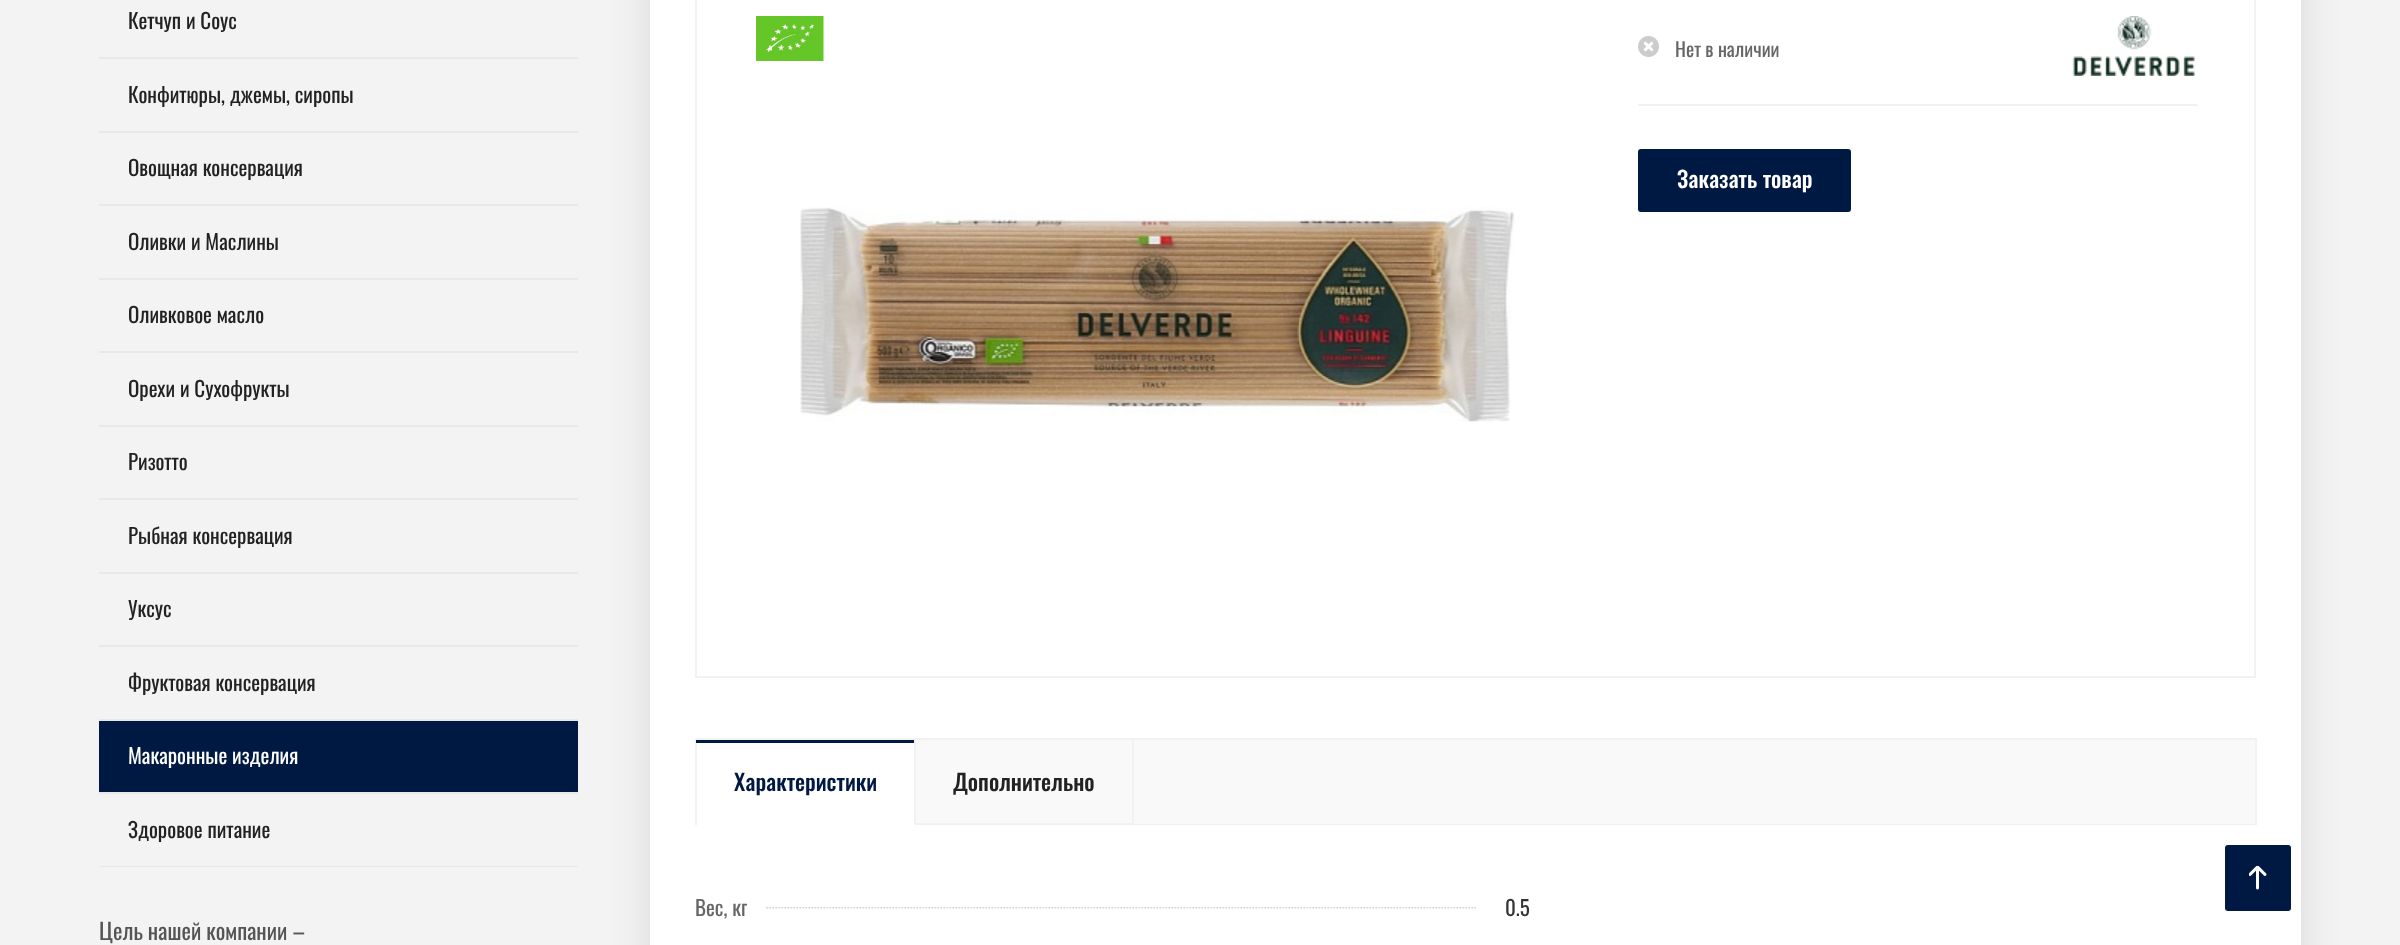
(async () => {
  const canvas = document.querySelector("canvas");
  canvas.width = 2400;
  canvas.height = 945;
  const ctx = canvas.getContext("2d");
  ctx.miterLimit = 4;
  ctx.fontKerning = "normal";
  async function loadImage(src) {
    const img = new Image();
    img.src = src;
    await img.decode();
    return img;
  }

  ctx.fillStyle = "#f3f3f3";
  ctx.fillRect(0, 0, 2400, 945);
  for (const [x, y, w, h, color] of [
    [99, 57, 479, 2, "#e8e8e8"],
    [99, 131, 479, 2, "#e8e8e8"],
    [99, 204, 479, 2, "#e8e8e8"],
    [99, 278, 479, 2, "#e8e8e8"],
    [99, 351, 479, 2, "#e8e8e8"],
    [99, 425, 479, 2, "#e8e8e8"],
    [99, 498, 479, 2, "#e8e8e8"],
    [99, 572, 479, 2, "#e8e8e8"],
    [99, 645, 479, 2, "#e8e8e8"],
    [99, 721, 479, 71, "#001942"],
    [99, 719, 479, 2, "#e8e8e8"],
    [99, 792, 479, 2, "#e8e8e8"],
    [99, 866, 479, 1, "#e8e8e8"],
  ]) {
    ctx.fillStyle = color;
    ctx.fillRect(x, y, w, h);
  }
  ctx.fillStyle = "rgba(0, 0, 0, 0.1)";
  ctx.filter = "blur(20px)";
  ctx.beginPath();
  ctx.roundRect(650, -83, 1651, 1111, 23);
  ctx.fill();
  ctx.filter = "none";
  ctx.fillStyle = "#ffffff";
  ctx.fillRect(650, 0, 1651, 945);
  ctx.strokeStyle = "#f2f2f2";
  ctx.lineWidth = 2;
  ctx.strokeRect(696, -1, 1559, 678);
  ctx.drawImage(await loadImage("img/1.png"), 756, 16, 68, 45);
  ctx.drawImage(await loadImage("img/2.png"), 800, 207, 715, 215);
  ctx.drawImage(await loadImage("img/3.png"), 1638, 36, 21, 21);
  ctx.drawImage(await loadImage("img/4.png"), 2072, 16, 123, 60);
  ctx.fillStyle = "#f2f2f2";
  ctx.fillRect(1638, 104, 560, 2);
  ctx.fillStyle = "#001942";
  ctx.beginPath();
  ctx.roundRect(1639, 150, 211, 61, 2);
  ctx.fill();
  ctx.strokeStyle = "#001942";
  ctx.stroke();
  for (const [x, y, w, h, color] of [
    [1134, 740, 1121, 84, "#f9f9fa"],
    [1134, 738, 1122, 2, "#f2f2f2"],
    [2255, 738, 2, 87, "#f2f2f2"],
    [1134, 824, 1122, 1, "#f2f2f2"],
  ]) {
    ctx.fillStyle = color;
    ctx.fillRect(x, y, w, h);
  }
  ctx.fillStyle = "#f9f9fa";
  ctx.beginPath();
  ctx.rect(915, 739, 218, 85);
  ctx.fill();
  ctx.strokeStyle = "#f2f2f2";
  ctx.stroke();
  for (const [x, y, w, h, color] of [
    [695, 738, 220, 2, "#f2f2f2"],
    [914, 824, 1, 1, "#ffffff"],
    [695, 738, 2, 87, "#f2f2f2"],
    [696, 740, 218, 3, "#001942"],
  ]) {
    ctx.fillStyle = color;
    ctx.fillRect(x, y, w, h);
  }
  ctx.drawImage(await loadImage("img/5.png"), 694, 907, 782, 2);
  ctx.fillStyle = "#ffffff";
  ctx.fillRect(695, 907, 70, 2);
  ctx.fillStyle = "#001942";
  ctx.beginPath();
  ctx.roundRect(2225, 845, 66, 66, 3);
  ctx.fill();
  ctx.drawImage(await loadImage("img/6.png"), 2249, 866, 18, 24);
  ctx.font = "21px Oswald";
  ctx.fillStyle = "#222222";
  for (const [text, x, y] of [
    ["Кетчуп и Соус", 128, 29],
    ["Конфитюры, джемы, сиропы", 128, 103],
    ["Овощная консервация", 128, 176],
    ["Оливки и Маслины", 128, 250],
    ["Оливковое масло", 128, 323],
    ["Орехи и Сухофрукты", 128, 397],
    ["Ризотто", 128, 470],
    ["Рыбная консервация", 128, 544],
    ["Уксус", 128, 617],
    ["Фруктовая консервация", 128, 691],
  ]) {
    ctx.fillText(text, x, y);
  }
  ctx.fillStyle = "#ffffff";
  ctx.fillText("Макаронные изделия", 128, 764);
  ctx.fillStyle = "#222222";
  ctx.fillText("Здоровое питание", 128, 838);
  ctx.font = "22.5px Oswald";
  ctx.fillStyle = "#555555";
  ctx.fillText("Цель нашей компании –", 99, 940);
  ctx.font = "19.5px Oswald";
  ctx.fillStyle = "#666666";
  ctx.fillText("Нет в наличии", 1675, 57);
  ctx.font = "500 22.5px Oswald";
  ctx.fillStyle = "#ffffff";
  ctx.fillText("Заказать товар", 1677, 188);
  ctx.fillStyle = "#001942";
  ctx.fillText("Характеристики", 734, 791);
  ctx.fillStyle = "#222222";
  ctx.fillText("Дополнительно", 953, 791);
  ctx.font = "21px Oswald";
  ctx.fillStyle = "#666666";
  ctx.fillText("Вес, кг", 695, 916);
  ctx.fillStyle = "#333333";
  ctx.fillText("0.5", 1505, 916);
})();
